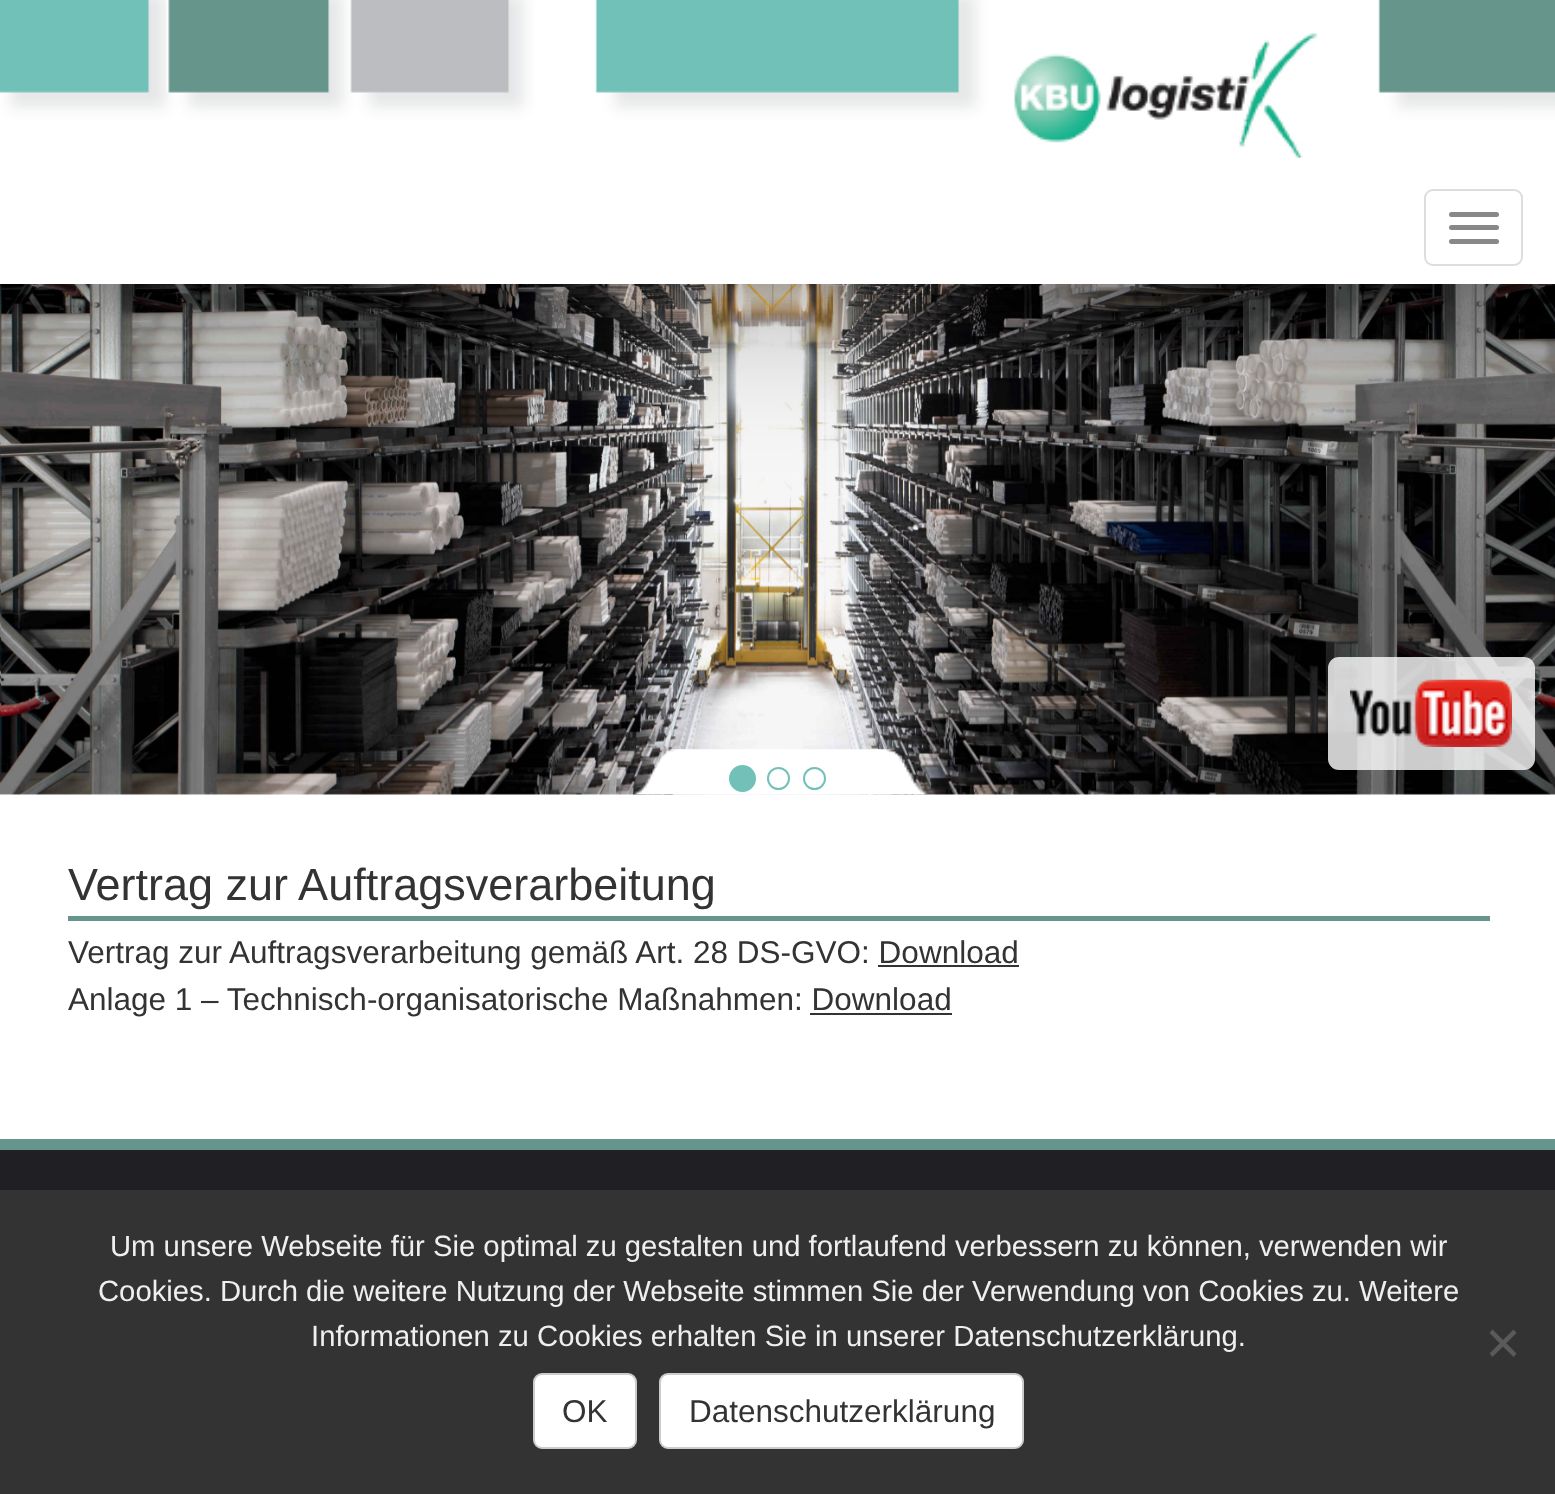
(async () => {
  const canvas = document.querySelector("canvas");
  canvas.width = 1555;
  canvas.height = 1494;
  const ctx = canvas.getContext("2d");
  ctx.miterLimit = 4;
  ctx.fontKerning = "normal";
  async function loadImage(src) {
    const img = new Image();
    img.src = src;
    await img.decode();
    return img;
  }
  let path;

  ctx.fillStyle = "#ffffff";
  ctx.fillRect(0, 0, 1555, 1494);
  ctx.drawImage(await loadImage("img/2.png"), 0, 284, 1555, 511);
  ctx.fillStyle = "rgba(0, 0, 0, 0.5)";
  ctx.filter = "blur(90px)";
  ctx.beginPath();
  ctx.rect(-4, -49, 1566, 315);
  ctx.fill();
  ctx.filter = "none";
  ctx.fillStyle = "#ffffff";
  ctx.fillRect(0, 159, 1555, 125);
  ctx.drawImage(await loadImage("img/1.png"), 0, 0, 1555, 159);
  ctx.beginPath();
  ctx.roundRect(1425, 190, 97, 75, 8);
  ctx.strokeStyle = "#dddddd";
  ctx.lineWidth = 2;
  ctx.stroke();
  ctx.fillStyle = "#888888";
  ctx.beginPath();
  ctx.roundRect(1449, 212, 50, 5, 2.5);
  ctx.fill();
  ctx.beginPath();
  ctx.roundRect(1449, 225, 50, 5, 2.5);
  ctx.fill();
  ctx.beginPath();
  ctx.roundRect(1449, 239, 50, 5, 2.5);
  ctx.fill();
  ctx.drawImage(await loadImage("img/3.png"), 633, 749, 296, 46);
  ctx.fillStyle = "#72c1b9";
  ctx.beginPath();
  ctx.arc(742.5, 778.5, 13.5, 0, Math.PI * 2);
  ctx.fill();
  ctx.beginPath();
  ctx.arc(778.5, 778.5, 10.5, 0, Math.PI * 2);
  ctx.strokeStyle = "#72c1b9";
  ctx.stroke();
  ctx.beginPath();
  ctx.arc(814.5, 778.5, 10.5, 0, Math.PI * 2);
  ctx.stroke();
  ctx.fillStyle = "rgba(255, 255, 255, 0.8)";
  ctx.beginPath();
  ctx.roundRect(1328, 657, 207, 113, 11);
  ctx.fill();
  ctx.drawImage(await loadImage("img/4.png"), 1350, 679, 162, 68);
  for (const [x, y, w, h, color] of [
    [68, 916, 1422, 5, "#66958c"],
    [878, 965, 141, 2, "#333333"],
    [810, 1013, 142, 2, "#333333"],
    [0, 1150, 1555, 40, "#202024"],
    [0, 1139, 1555, 11, "#66958c"],
    [0, 1190, 1555, 304, "#333333"],
  ]) {
    ctx.fillStyle = color;
    ctx.fillRect(x, y, w, h);
  }
  ctx.fillStyle = "#5a5a5a";
  path = new Path2D("M1513.5 1329.5L1516.5 1333L1492.5 1357L1489.5 1353.5Z");
  ctx.fill(path);
  path = new Path2D("M1489.5 1333L1492.5 1329.5L1516.5 1353.5L1513.5 1357Z");
  ctx.fill(path);
  ctx.fillStyle = "#ffffff";
  ctx.beginPath();
  ctx.roundRect(534, 1374, 102, 74, 8);
  ctx.fill();
  ctx.strokeStyle = "#cccccc";
  ctx.stroke();
  ctx.beginPath();
  ctx.roundRect(660, 1374, 363, 74, 8);
  ctx.fill();
  ctx.stroke();
  ctx.font = "45px Liberation Sans";
  ctx.fillStyle = "#333333";
  ctx.fillText("Vertrag zur Auftragsverarbeitung", 68, 900);
  ctx.font = "31.5px Liberation Sans";
  ctx.fillText("Vertrag zur Auftragsverarbeitung gemäß Art. 28 DS-GVO: Download", 68, 963);
  ctx.fillText("Anlage 1 – Technisch-organisatorische Maßnahmen: Download", 68, 1010);
  ctx.font = "29.25px Liberation Sans";
  ctx.fillStyle = "#efefef";
  for (const [text, x, y] of [
    ["Um unsere Webseite für Sie optimal zu gestalten und fortlaufend verbessern zu können, verwenden wir", 110, 1256],
    ["Cookies. Durch die weitere Nutzung der Webseite stimmen Sie der Verwendung von Cookies zu. Weitere", 98, 1301],
    ["Informationen zu Cookies erhalten Sie in unserer Datenschutzerklärung.", 311, 1346],
  ]) {
    ctx.fillText(text, x, y);
  }
  ctx.font = "31.5px Liberation Sans";
  ctx.fillStyle = "#333333";
  ctx.fillText("OK", 562, 1422);
  ctx.fillText("Datenschutzerklärung", 689, 1422);
})();
